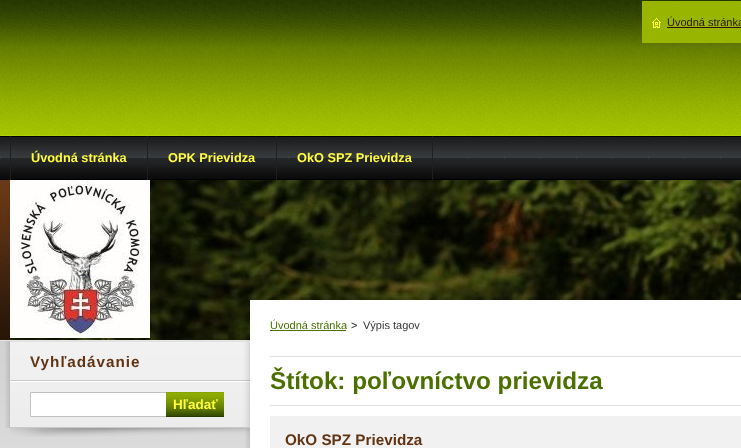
(async () => {
  const canvas = document.querySelector("canvas");
  canvas.width = 741;
  canvas.height = 448;
  const ctx = canvas.getContext("2d");
  ctx.miterLimit = 4;
  ctx.fontKerning = "normal";
  async function loadImage(src) {
    const img = new Image();
    img.src = src;
    await img.decode();
    return img;
  }

  ctx.fillStyle = "#ffffff";
  ctx.fillRect(0, 0, 741, 448);
  ctx.drawImage(await loadImage("img/1.png"), 0, 0, 741, 448);
  ctx.fillStyle = "#98b501";
  ctx.fillRect(642, 1, 99, 42);
  ctx.drawImage(await loadImage("img/2.png"), 652, 18, 9, 10);
  for (const [x, y, w, h, color] of [
    [667, 27, 74, 1, "#2b1709"],
    [147, 136, 1, 44, "#1f1f1f"],
    [10, 136, 1, 44, "#1f1f1f"],
    [276, 136, 1, 44, "#1f1f1f"],
    [432, 136, 1, 44, "#1f1f1f"],
  ]) {
    ctx.fillStyle = color;
    ctx.fillRect(x, y, w, h);
  }
  ctx.drawImage(await loadImage("img/3.png"), 10, 180, 731, 160);
  ctx.drawImage(await loadImage("img/4.png"), 250, 297, 491, 14);
  ctx.drawImage(await loadImage("img/5.png"), 245, 311, 496, 137);
  ctx.drawImage(await loadImage("img/6.png"), 10, 428, 240, 9);
  ctx.drawImage(await loadImage("img/7.png"), 5, 341, 5, 87);
  ctx.drawImage(await loadImage("img/8.png"), 10, 342, 240, 85);
  ctx.fillStyle = "#c9c9c9";
  ctx.fillRect(10, 427, 240, 1);
  ctx.drawImage(await loadImage("img/9.png"), 10, 380, 240, 2);
  ctx.fillStyle = "#e1e1e1";
  ctx.fillRect(10, 341, 240, 1);
  ctx.fillStyle = "#ffffff";
  ctx.beginPath();
  ctx.rect(30.5, 392.5, 136, 24);
  ctx.fill();
  ctx.strokeStyle = "#c1c1c1";
  ctx.stroke();
  ctx.fillStyle = "#293a02";
  ctx.fillRect(166, 416, 58, 1);
  ctx.drawImage(await loadImage("img/10.png"), 166, 392, 58, 24);
  for (const [x, y, w, h, color] of [
    [270, 330, 76, 1, "#4b7000"],
    [270, 356, 471, 1, "#e1e1e1"],
    [270, 405, 471, 1, "#e1e1e1"],
    [270, 416, 471, 32, "#f1f1f1"],
  ]) {
    ctx.fillStyle = color;
    ctx.fillRect(x, y, w, h);
  }
  ctx.font = "11px Liberation Sans";
  ctx.fillStyle = "#2b1709";
  ctx.fillText("Úvodná stránka", 667, 26);
  ctx.font = "bold 12.75px Liberation Sans";
  ctx.fillStyle = "#fffd3d";
  for (const [text, x, y] of [
    ["Úvodná stránka", 31, 162],
    ["OPK Prievidza", 168, 162],
    ["OkO SPZ Prievidza", 297, 162],
  ]) {
    ctx.fillText(text, x, y);
  }
  ctx.letterSpacing = "1px";
  ctx.font = "bold 15.25px Liberation Sans";
  ctx.fillStyle = "#613414";
  ctx.fillText("Vyhľadávanie", 30, 367);
  ctx.letterSpacing = "0px";
  ctx.font = "bold 13.5px Liberation Sans";
  ctx.fillStyle = "#fffd3d";
  ctx.fillText("Hľadať", 173, 409);
  ctx.font = "11px Liberation Sans";
  ctx.fillStyle = "#4b7000";
  ctx.fillText("Úvodná stránka", 270, 329);
  ctx.fillStyle = "#363636";
  ctx.fillText(">", 351, 329);
  ctx.fillText("Výpis tagov", 363, 329);
  ctx.font = "bold 24.25px Liberation Sans";
  ctx.fillStyle = "#4b7000";
  ctx.fillText("Štítok: poľovníctvo prievidza", 270, 389);
  ctx.font = "bold 15.25px Liberation Sans";
  ctx.fillStyle = "#613414";
  ctx.fillText("OkO SPZ Prievidza", 285, 445);
})();
